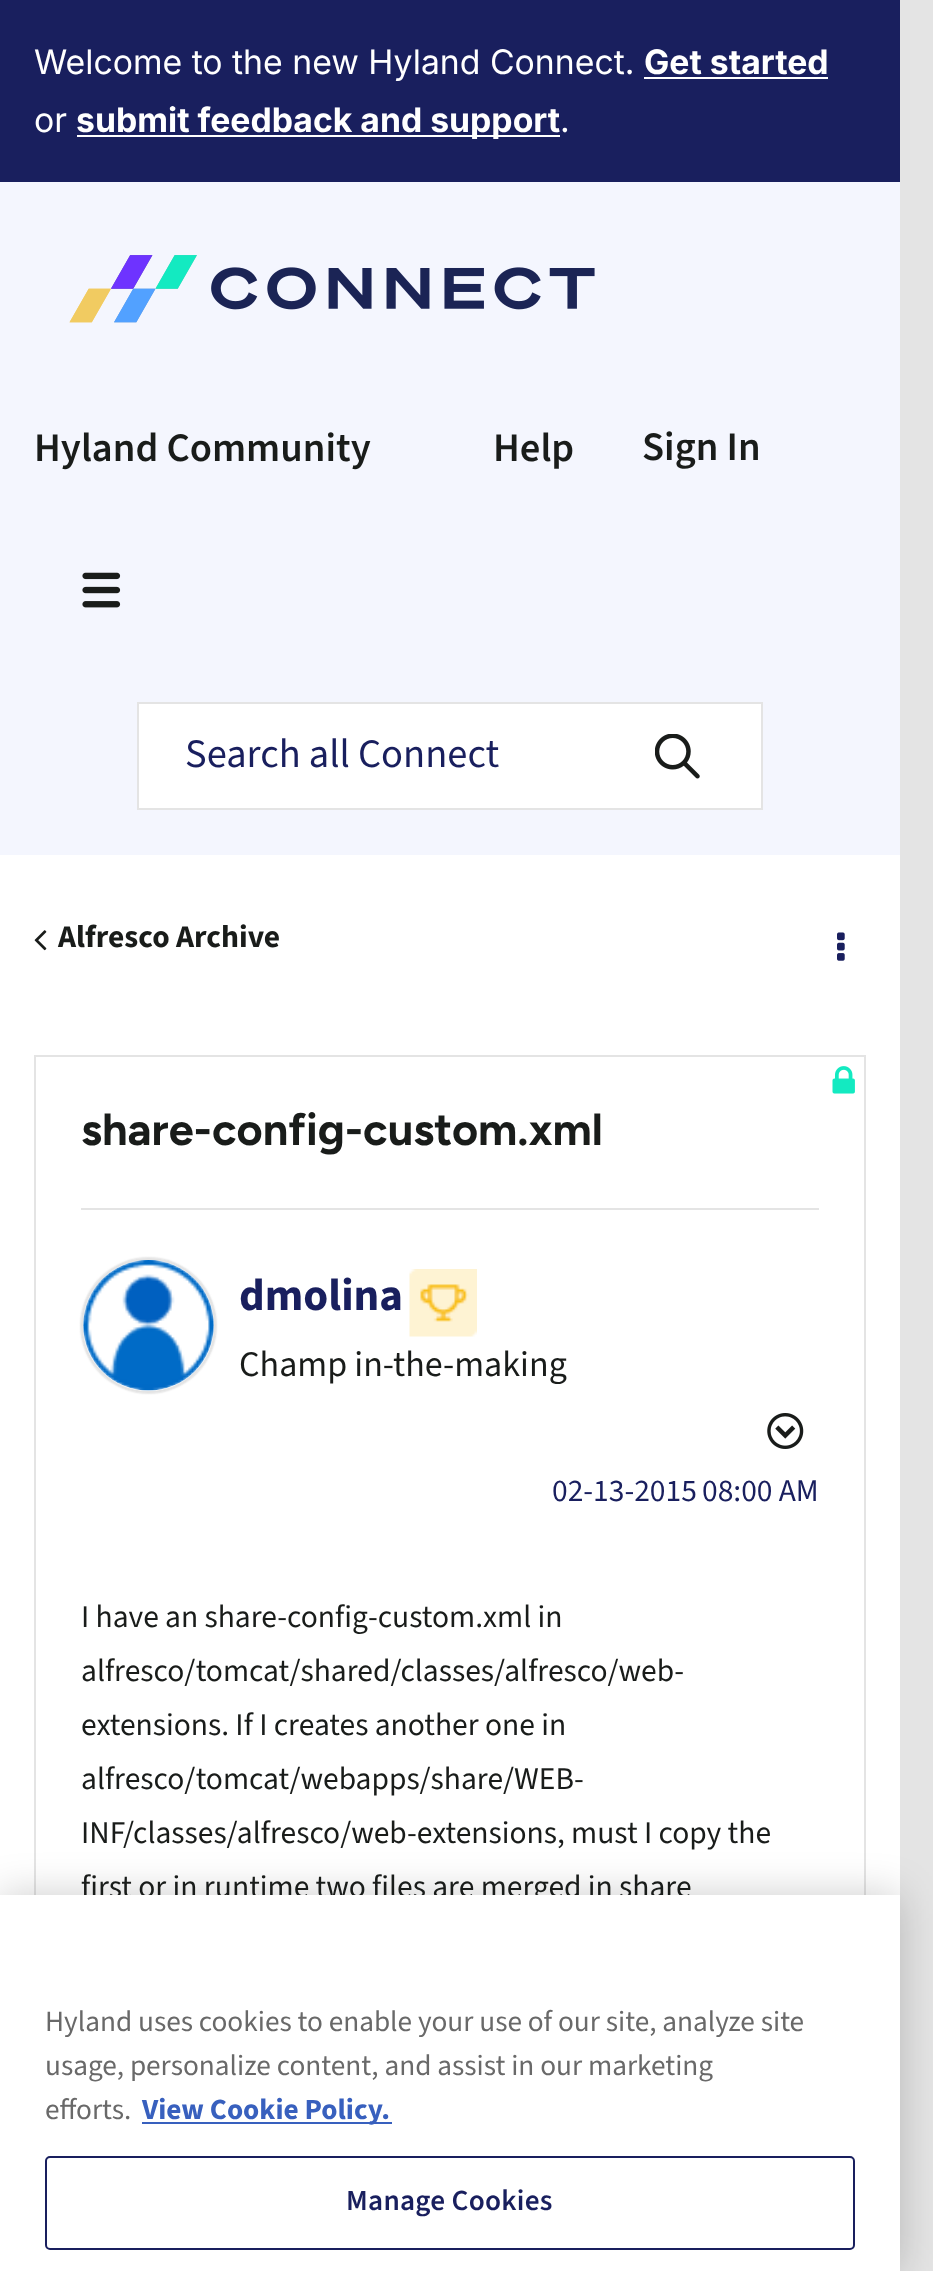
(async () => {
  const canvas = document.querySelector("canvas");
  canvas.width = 933;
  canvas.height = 2271;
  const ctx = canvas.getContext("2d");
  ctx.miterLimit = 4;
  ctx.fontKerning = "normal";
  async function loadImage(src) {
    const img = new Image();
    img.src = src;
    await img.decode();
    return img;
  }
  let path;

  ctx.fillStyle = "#e4e4e4";
  ctx.fillRect(0, 0, 933, 2271);
  for (const [x, y, w, h, color] of [
    [0, 855, 900, 1040, "#ffffff"],
    [0, 0, 900, 182, "#191f5e"],
    [644, 77, 184, 2, "#ffffff"],
    [77, 135, 483, 2, "#ffffff"],
    [0, 182, 900, 673, "#f4f6fe"],
  ]) {
    ctx.fillStyle = color;
    ctx.fillRect(x, y, w, h);
  }
  ctx.drawImage(await loadImage("img/1.png"), 69, 255, 526, 68);
  ctx.drawImage(await loadImage("img/2.png"), 82, 572, 39, 36);
  ctx.fillStyle = "#ffffff";
  ctx.beginPath();
  ctx.rect(138, 703, 624, 106);
  ctx.fill();
  ctx.strokeStyle = "#e4e4e4";
  ctx.lineWidth = 2;
  ctx.stroke();
  ctx.drawImage(await loadImage("img/3.png"), 655, 734, 45, 45);
  ctx.drawImage(await loadImage("img/4.png"), 34, 930, 13, 21);
  ctx.drawImage(await loadImage("img/5.png"), 837, 932, 8, 29);
  ctx.strokeRect(35, 1056, 830, 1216);
  ctx.drawImage(await loadImage("img/6.png"), 832, 1066, 23, 28);
  ctx.fillStyle = "#e4e4e4";
  ctx.fillRect(81, 1208, 738, 2);
  ctx.save();
  path = new Path2D("M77 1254H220V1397H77ZM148.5 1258C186 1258 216 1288 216 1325.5C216 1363 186 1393 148.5 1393C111 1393 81 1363 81 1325.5C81 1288 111 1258 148.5 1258Z");
  ctx.clip(path, "evenodd");
  ctx.fillStyle = "#c4c4c4";
  ctx.filter = "blur(1px)";
  ctx.beginPath();
  ctx.roundRect(81, 1258, 135, 135, 67.5);
  ctx.fill();
  ctx.filter = "none";
  ctx.restore();
  ctx.beginPath();
  ctx.arc(148.5, 1325.5, 66.5, 0, Math.PI * 2);
  ctx.stroke();
  ctx.drawImage(await loadImage("img/7.png"), 83, 1260, 131, 131);
  ctx.drawImage(await loadImage("img/8.png"), 409, 1269, 68, 68);
  ctx.drawImage(await loadImage("img/9.png"), 767, 1413, 37, 36);
  ctx.fillStyle = "rgba(0, 0, 0, 0.2)";
  ctx.filter = "blur(20px)";
  ctx.beginPath();
  ctx.rect(0, 1895, 900, 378);
  ctx.fill();
  ctx.filter = "none";
  ctx.font = "33.75px Inter";
  ctx.fillStyle = "#ffffff";
  ctx.fillText("Welcome to the new Hyland Connect.", 34, 74);
  ctx.font = "bold 33.75px Inter";
  ctx.fillText("Get started", 644, 74);
  ctx.font = "33.75px Inter";
  ctx.fillText("or", 34, 132);
  ctx.font = "bold 33.75px Inter";
  ctx.fillText("submit feedback and support", 76, 132);
  ctx.font = "33.75px Inter";
  ctx.fillText(".", 560, 132);
  ctx.font = "600 40.5px 'Source Sans 3'";
  ctx.fillStyle = "#191c1a";
  for (const [text, x, y] of [
    ["Hyland Community", 34, 461],
    ["Help", 493, 461],
    ["Sign In", 642, 460],
  ]) {
    ctx.fillText(text, x, y);
  }
  ctx.font = "40.5px 'Source Sans 3'";
  ctx.fillStyle = "#191f5e";
  ctx.fillText("Search all Connect", 185, 767);
  ctx.font = "bold 31.5px 'Source Sans 3'";
  ctx.fillStyle = "#191c1a";
  ctx.fillText("Alfresco Archive", 58, 947);
  ctx.font = "bold 45px Figtree";
  ctx.fillText("share-config-custom.xml", 81, 1145);
  ctx.font = "bold 45px 'Source Sans 3'";
  ctx.fillStyle = "#191f5e";
  ctx.fillText("dmolina", 239, 1310);
  ctx.font = "36px 'Source Sans 3'";
  ctx.fillStyle = "#191c1a";
  ctx.fillText("Champ in-the-making", 239, 1376);
  ctx.font = "31.5px 'Source Sans 3'";
  ctx.fillStyle = "#191f5e";
  ctx.fillText("02-13-2015", 552, 1501);
  ctx.fillText("08:00 AM", 702, 1501);
  ctx.fillStyle = "#191c1a";
  for (const [text, x, y] of [
    ["I have an share-config-custom.xml in", 81, 1627],
    ["alfresco/tomcat/shared/classes/alfresco/web-", 81, 1681],
    ["extensions. If I creates another one in", 81, 1735],
    ["alfresco/tomcat/webapps/share/WEB-", 81, 1789],
    ["INF/classes/alfresco/web-extensions, must I copy the", 81, 1843],
    ["first or in runtime two files are merged in share", 81, 1897],
  ]) {
    ctx.fillText(text, x, y);
  }
  ctx.fillStyle = "#ffffff";
  ctx.fillRect(0, 1895, 900, 376);
  ctx.font = "29.25px 'Source Sans 3'";
  ctx.fillStyle = "#696969";
  for (const [text, x, y] of [
    ["Hyland uses cookies to enable your use of our site, analyze site", 45, 2031],
    ["usage, personalize content, and assist in our marketing", 45, 2075],
    ["efforts.", 45, 2119],
  ]) {
    ctx.fillText(text, x, y);
  }
  ctx.fillStyle = "#3860be";
  ctx.fillRect(142, 2122, 250, 2);
  ctx.font = "bold 29.25px 'Source Sans 3'";
  ctx.fillText("View Cookie Policy.", 142, 2119);
  ctx.beginPath();
  ctx.roundRect(46, 2157, 808, 92, 4);
  ctx.strokeStyle = "#191f5e";
  ctx.stroke();
  ctx.letterSpacing = "0.25px";
  ctx.font = "600 29.25px 'Source Sans 3'";
  ctx.fillStyle = "#191f5e";
  ctx.fillText("Manage Cookies", 346, 2210);
})();
